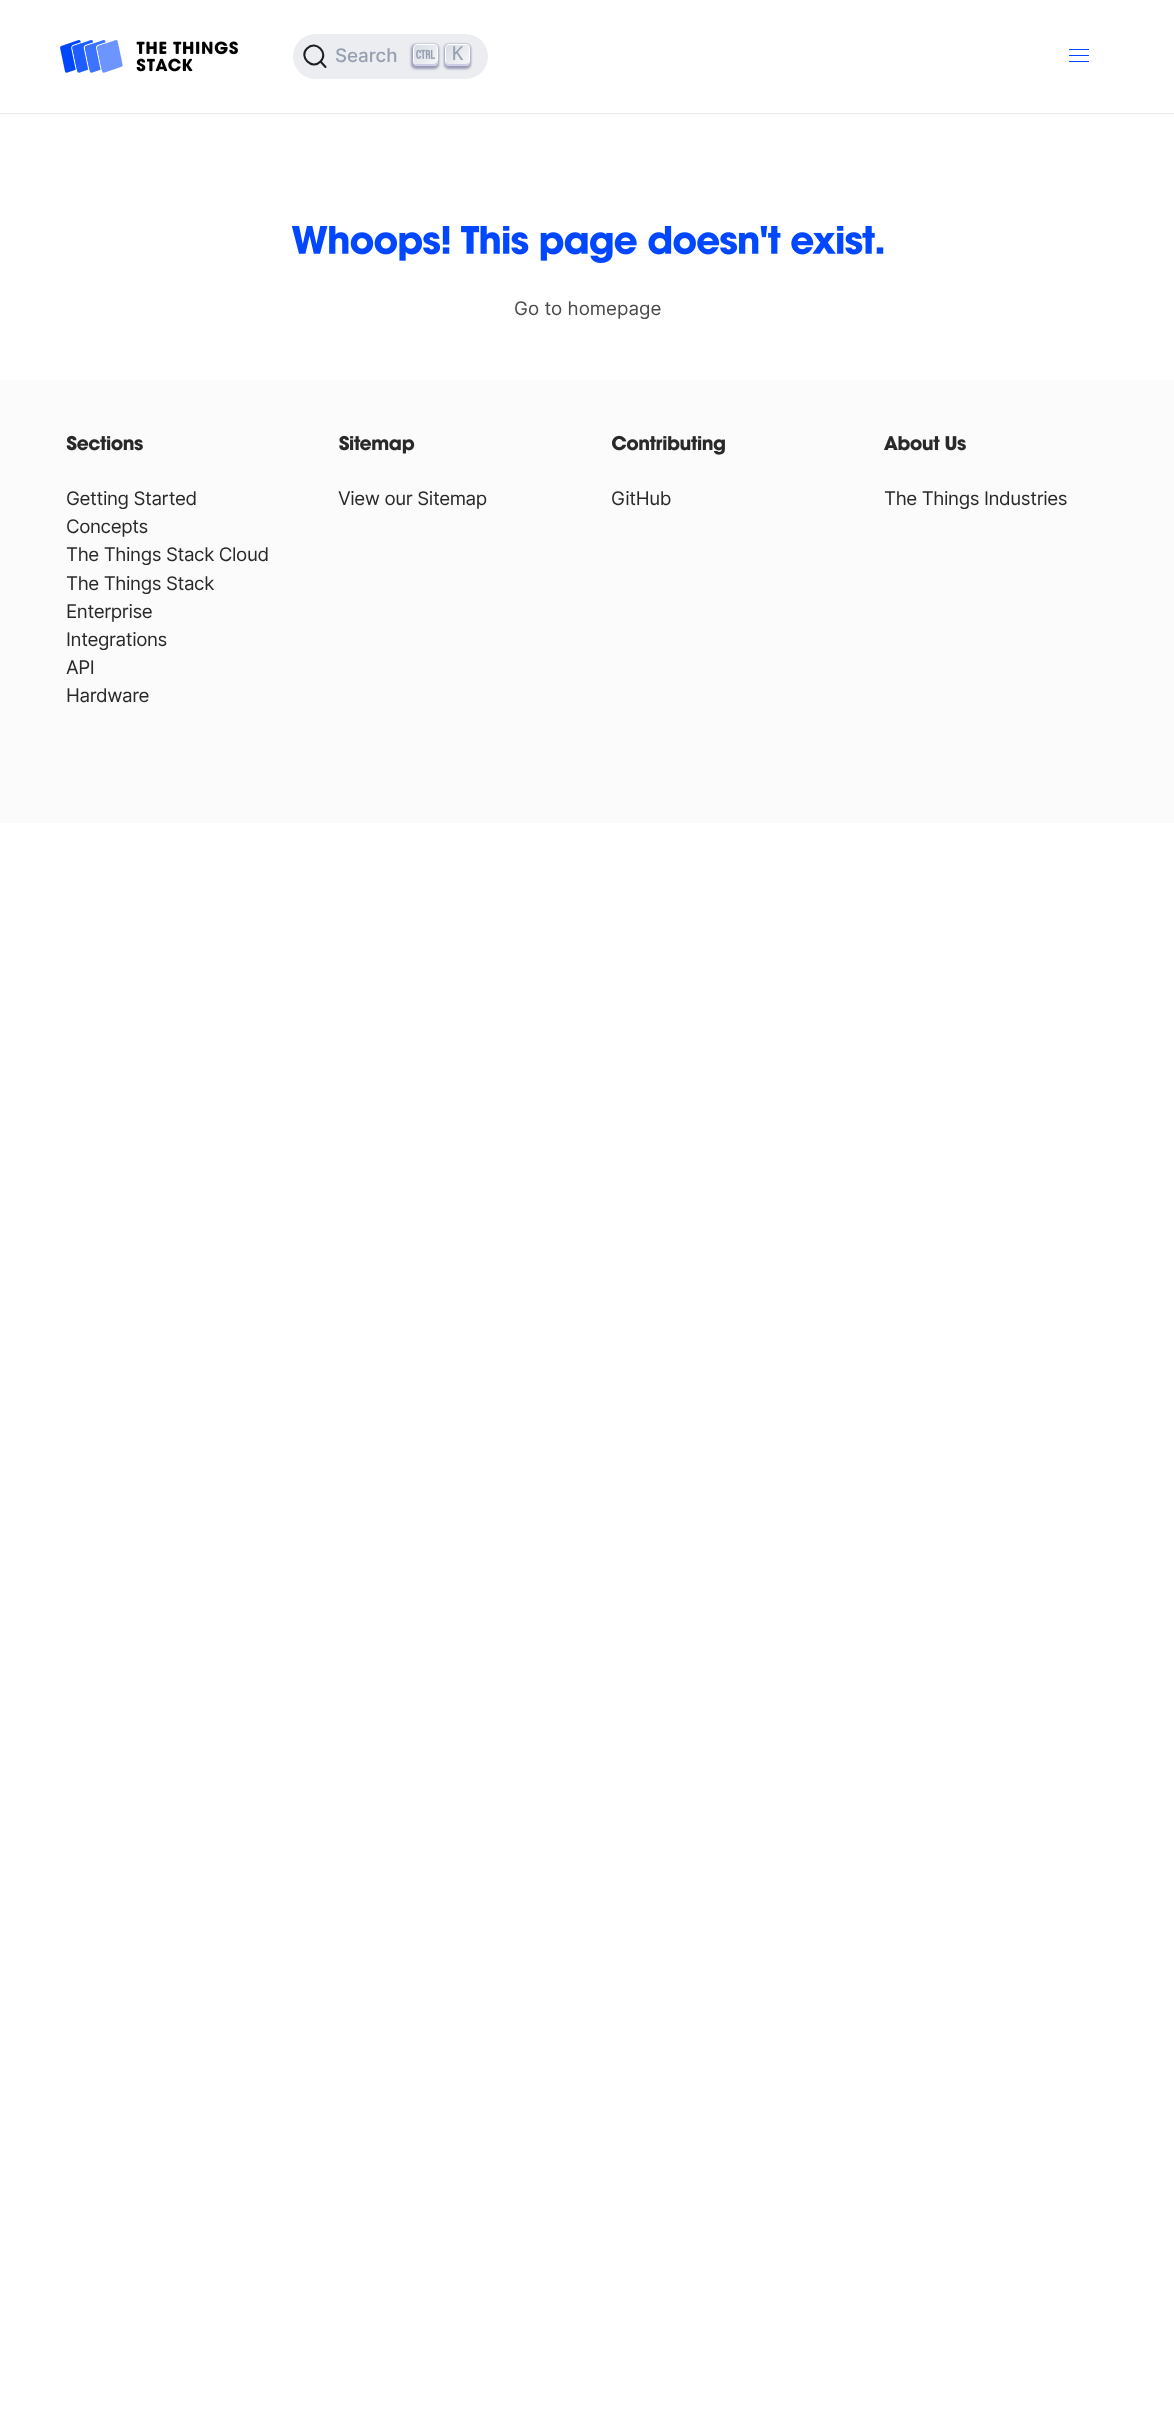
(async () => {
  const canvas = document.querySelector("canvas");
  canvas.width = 1174;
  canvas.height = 2416;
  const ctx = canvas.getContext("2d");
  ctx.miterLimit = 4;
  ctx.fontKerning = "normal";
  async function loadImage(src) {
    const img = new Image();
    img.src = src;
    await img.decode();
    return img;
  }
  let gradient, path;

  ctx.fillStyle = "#ffffff";
  ctx.fillRect(0, 0, 1174, 2416);
  ctx.fillStyle = "#e9ecef";
  ctx.fillRect(0, 113, 1174, 1);
  ctx.drawImage(await loadImage("img/1.png"), 60, 40, 178, 33);
  ctx.fillStyle = "#ebedf0";
  ctx.beginPath();
  ctx.roundRect(293, 34, 195, 45, 22.5);
  ctx.fill();
  path = new Path2D("M320.5 61.5L325.5 67L320.5 61.5C312 70.5 298.5 57 307 48.5C316 39.5 329 53 320.5 61.5Z");
  ctx.strokeStyle = "#1c1e21";
  ctx.lineWidth = 2;
  ctx.lineCap = "round";
  ctx.lineJoin = "round";
  ctx.stroke(path);
  ctx.fillStyle = "rgba(30, 35, 90, 0.4)";
  ctx.filter = "blur(1px)";
  ctx.beginPath();
  ctx.roundRect(411, 44, 28, 25, 5);
  ctx.fill();
  ctx.filter = "none";
  gradient = ctx.createLinearGradient(413, 43, 437, 67);
  gradient.addColorStop(0, "#d5dbe4");
  gradient.addColorStop(1, "#f8f8f8");
  ctx.fillStyle = gradient;
  ctx.beginPath();
  ctx.roundRect(413.5, 44.5, 24, 21, 3.5);
  ctx.fill();
  ctx.strokeStyle = "#ffffff";
  ctx.lineWidth = 1;
  ctx.lineJoin = "miter";
  ctx.stroke();
  ctx.fillStyle = "#cdcde6";
  path = new Path2D("M413 62.5C413 64.5 415 66 417 66H434C436 66 438 64 438 62V58C438 62 436.5 64 431 64H416C414.5 64 413.5 63.5 413 62.5Z");
  ctx.fill(path);
  ctx.drawImage(await loadImage("img/2.png"), 416, 49, 19, 10);
  ctx.fillStyle = "rgba(30, 35, 90, 0.4)";
  ctx.filter = "blur(1px)";
  ctx.beginPath();
  ctx.roundRect(444, 44, 27, 25, 5);
  ctx.fill();
  ctx.filter = "none";
  gradient = ctx.createLinearGradient(446, 43, 469, 67);
  gradient.addColorStop(0, "#d5dbe4");
  gradient.addColorStop(1, "#f8f8f8");
  ctx.fillStyle = gradient;
  ctx.beginPath();
  ctx.roundRect(445.5, 44.5, 24, 21, 3.5);
  ctx.fill();
  ctx.stroke();
  ctx.fillStyle = "#cdcde6";
  path = new Path2D("M470 60.5C469.5 63 468 64 463 64H449C446.5 64 445.5 62.5 445 61C445 66 447.5 66 452 66H463C468 66 470 65.5 470 60.5Z");
  ctx.fill(path);
  for (const [x, y, w, h, color] of [
    [1069, 49, 20, 1, "#0047ff"],
    [1069, 55, 20, 1, "#0047ff"],
    [1069, 61, 20, 1, "#0047ff"],
  ]) {
    ctx.fillStyle = color;
    ctx.fillRect(x, y, w, h);
  }
  ctx.drawImage(await loadImage("img/3.png"), 291, 226, 593, 37);
  ctx.fillStyle = "#fbfbfb";
  ctx.fillRect(0, 380, 1174, 443);
  ctx.drawImage(await loadImage("img/4.png"), 66, 435, 77, 16);
  ctx.drawImage(await loadImage("img/5.png"), 339, 435, 76, 19);
  ctx.drawImage(await loadImage("img/6.png"), 611, 435, 114, 20);
  ctx.drawImage(await loadImage("img/7.png"), 884, 436, 82, 15);
  ctx.font = "500 18.75px Inter";
  ctx.fillStyle = "#969faf";
  ctx.fillText("Search", 335, 62);
  ctx.font = "18.75px DejaVu Sans Mono";
  ctx.fillText("K", 452, 60);
  ctx.font = "18.75px Inter";
  ctx.fillStyle = "#4a4a4a";
  ctx.fillText("Go to homepage", 514, 315);
  ctx.letterSpacing = "-0.4px";
  ctx.fillStyle = "#292929";
  for (const [text, x, y] of [
    ["Getting Started", 66, 505],
    ["Concepts", 66, 533],
    ["The Things Stack Cloud", 66, 561],
    ["The Things Stack", 66, 590],
    ["Enterprise", 66, 618],
    ["Integrations", 66, 646],
    ["API", 66, 674],
    ["Hardware", 66, 702],
    ["View our Sitemap", 338, 505],
    ["GitHub", 611, 505],
    ["The Things Industries", 884, 505],
  ]) {
    ctx.fillText(text, x, y);
  }
})();
